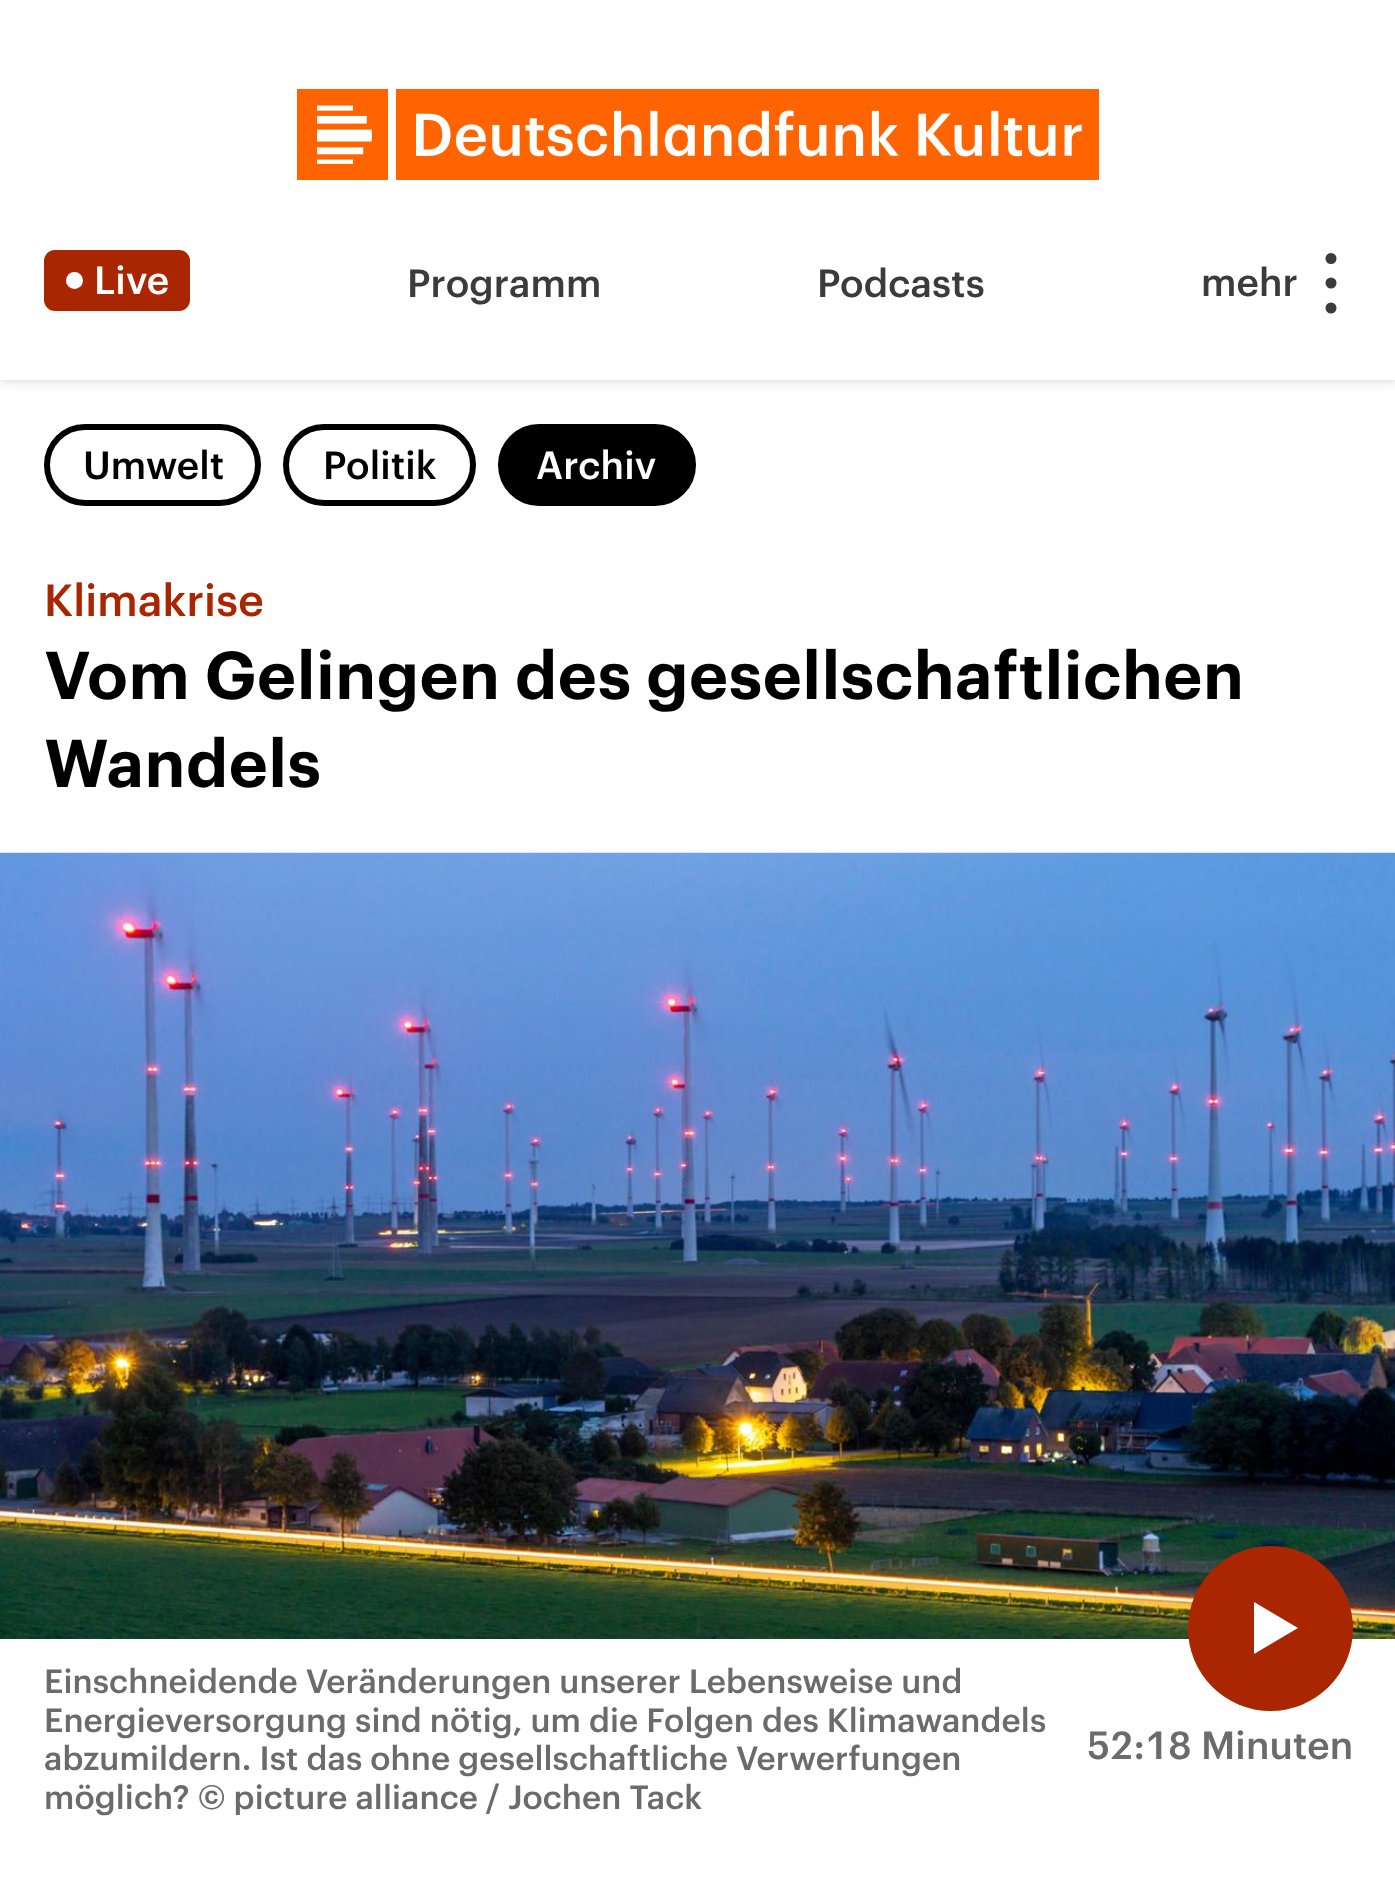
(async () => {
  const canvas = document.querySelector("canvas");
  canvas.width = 1395;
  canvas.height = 1894;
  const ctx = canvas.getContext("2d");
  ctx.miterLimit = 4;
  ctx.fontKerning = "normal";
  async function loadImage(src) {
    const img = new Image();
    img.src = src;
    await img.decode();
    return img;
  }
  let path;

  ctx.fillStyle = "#ffffff";
  ctx.fillRect(0, 0, 1395, 1894);
  ctx.fillStyle = "rgba(0, 0, 0, 0.2)";
  ctx.filter = "blur(5.5px)";
  ctx.beginPath();
  ctx.rect(0, 0, 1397, 380);
  ctx.fill();
  ctx.filter = "none";
  ctx.fillStyle = "#ffffff";
  ctx.fillRect(0, 0, 1395, 380);
  ctx.drawImage(await loadImage("img/1.png"), 297, 89, 802, 91);
  ctx.fillStyle = "#a92600";
  ctx.beginPath();
  ctx.roundRect(44, 250, 146, 61, 11);
  ctx.fill();
  ctx.fillStyle = "#ffffff";
  ctx.beginPath();
  ctx.arc(74.5, 280.5, 8.5, 0, Math.PI * 2);
  ctx.fill();
  ctx.fillStyle = "#3b3b3b";
  ctx.beginPath();
  ctx.arc(1331, 258.5, 5.5, 0, Math.PI * 2);
  ctx.fill();
  ctx.beginPath();
  ctx.arc(1331, 283, 5.5, 0, Math.PI * 2);
  ctx.fill();
  ctx.beginPath();
  ctx.arc(1331, 308, 5.5, 0, Math.PI * 2);
  ctx.fill();
  ctx.beginPath();
  ctx.roundRect(47, 427, 211, 76, 38);
  ctx.strokeStyle = "#000000";
  ctx.lineWidth = 6;
  ctx.stroke();
  ctx.beginPath();
  ctx.roundRect(286, 427, 187, 76, 38);
  ctx.stroke();
  ctx.fillStyle = "#000000";
  ctx.beginPath();
  ctx.roundRect(501, 427, 192, 76, 38);
  ctx.fill();
  ctx.stroke();
  ctx.drawImage(await loadImage("img/2.png"), 0, 852, 1395, 787);
  ctx.fillStyle = "#a92600";
  ctx.beginPath();
  ctx.arc(1270.5, 1628.5, 82.5, 0, Math.PI * 2);
  ctx.fill();
  ctx.fillStyle = "#ffffff";
  path = new Path2D("M1254 1654V1602L1298 1628Z");
  ctx.fill(path);
  ctx.font = "500 38.5px Graphik";
  ctx.fillText("Live", 94, 294);
  ctx.fillStyle = "#3b3b3b";
  for (const [text, x, y] of [
    ["Programm", 407, 297],
    ["Podcasts", 817, 297],
    ["mehr", 1201, 296],
  ]) {
    ctx.fillText(text, x, y);
  }
  ctx.fillStyle = "#000000";
  ctx.fillText("Umwelt", 83, 479);
  ctx.fillText("Politik", 323, 479);
  ctx.fillStyle = "#ffffff";
  ctx.fillText("Archiv", 536, 479);
  ctx.font = "500 44px Graphik";
  ctx.fillStyle = "#a92600";
  ctx.fillText("Klimakrise", 44, 616);
  ctx.font = "600 66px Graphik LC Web";
  ctx.fillStyle = "#000000";
  ctx.fillText("Vom Gelingen des gesellschaftlichen", 44, 699);
  ctx.fillText("Wandels", 44, 787);
  ctx.font = "500 33px Graphik";
  ctx.fillStyle = "#6b6b6b";
  for (const [text, x, y] of [
    ["Einschneidende Veränderungen unserer Lebensweise und", 44, 1693],
    ["Energieversorgung sind nötig, um die Folgen des Klimawandels", 44, 1732],
    ["abzumildern. Ist das ohne gesellschaftliche Verwerfungen", 44, 1770],
    ["möglich? © picture alliance / Jochen Tack", 44, 1809],
  ]) {
    ctx.fillText(text, x, y);
  }
  ctx.font = "500 38.5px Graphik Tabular";
  ctx.fillText("52:18 Minuten", 1087, 1759);
})();
